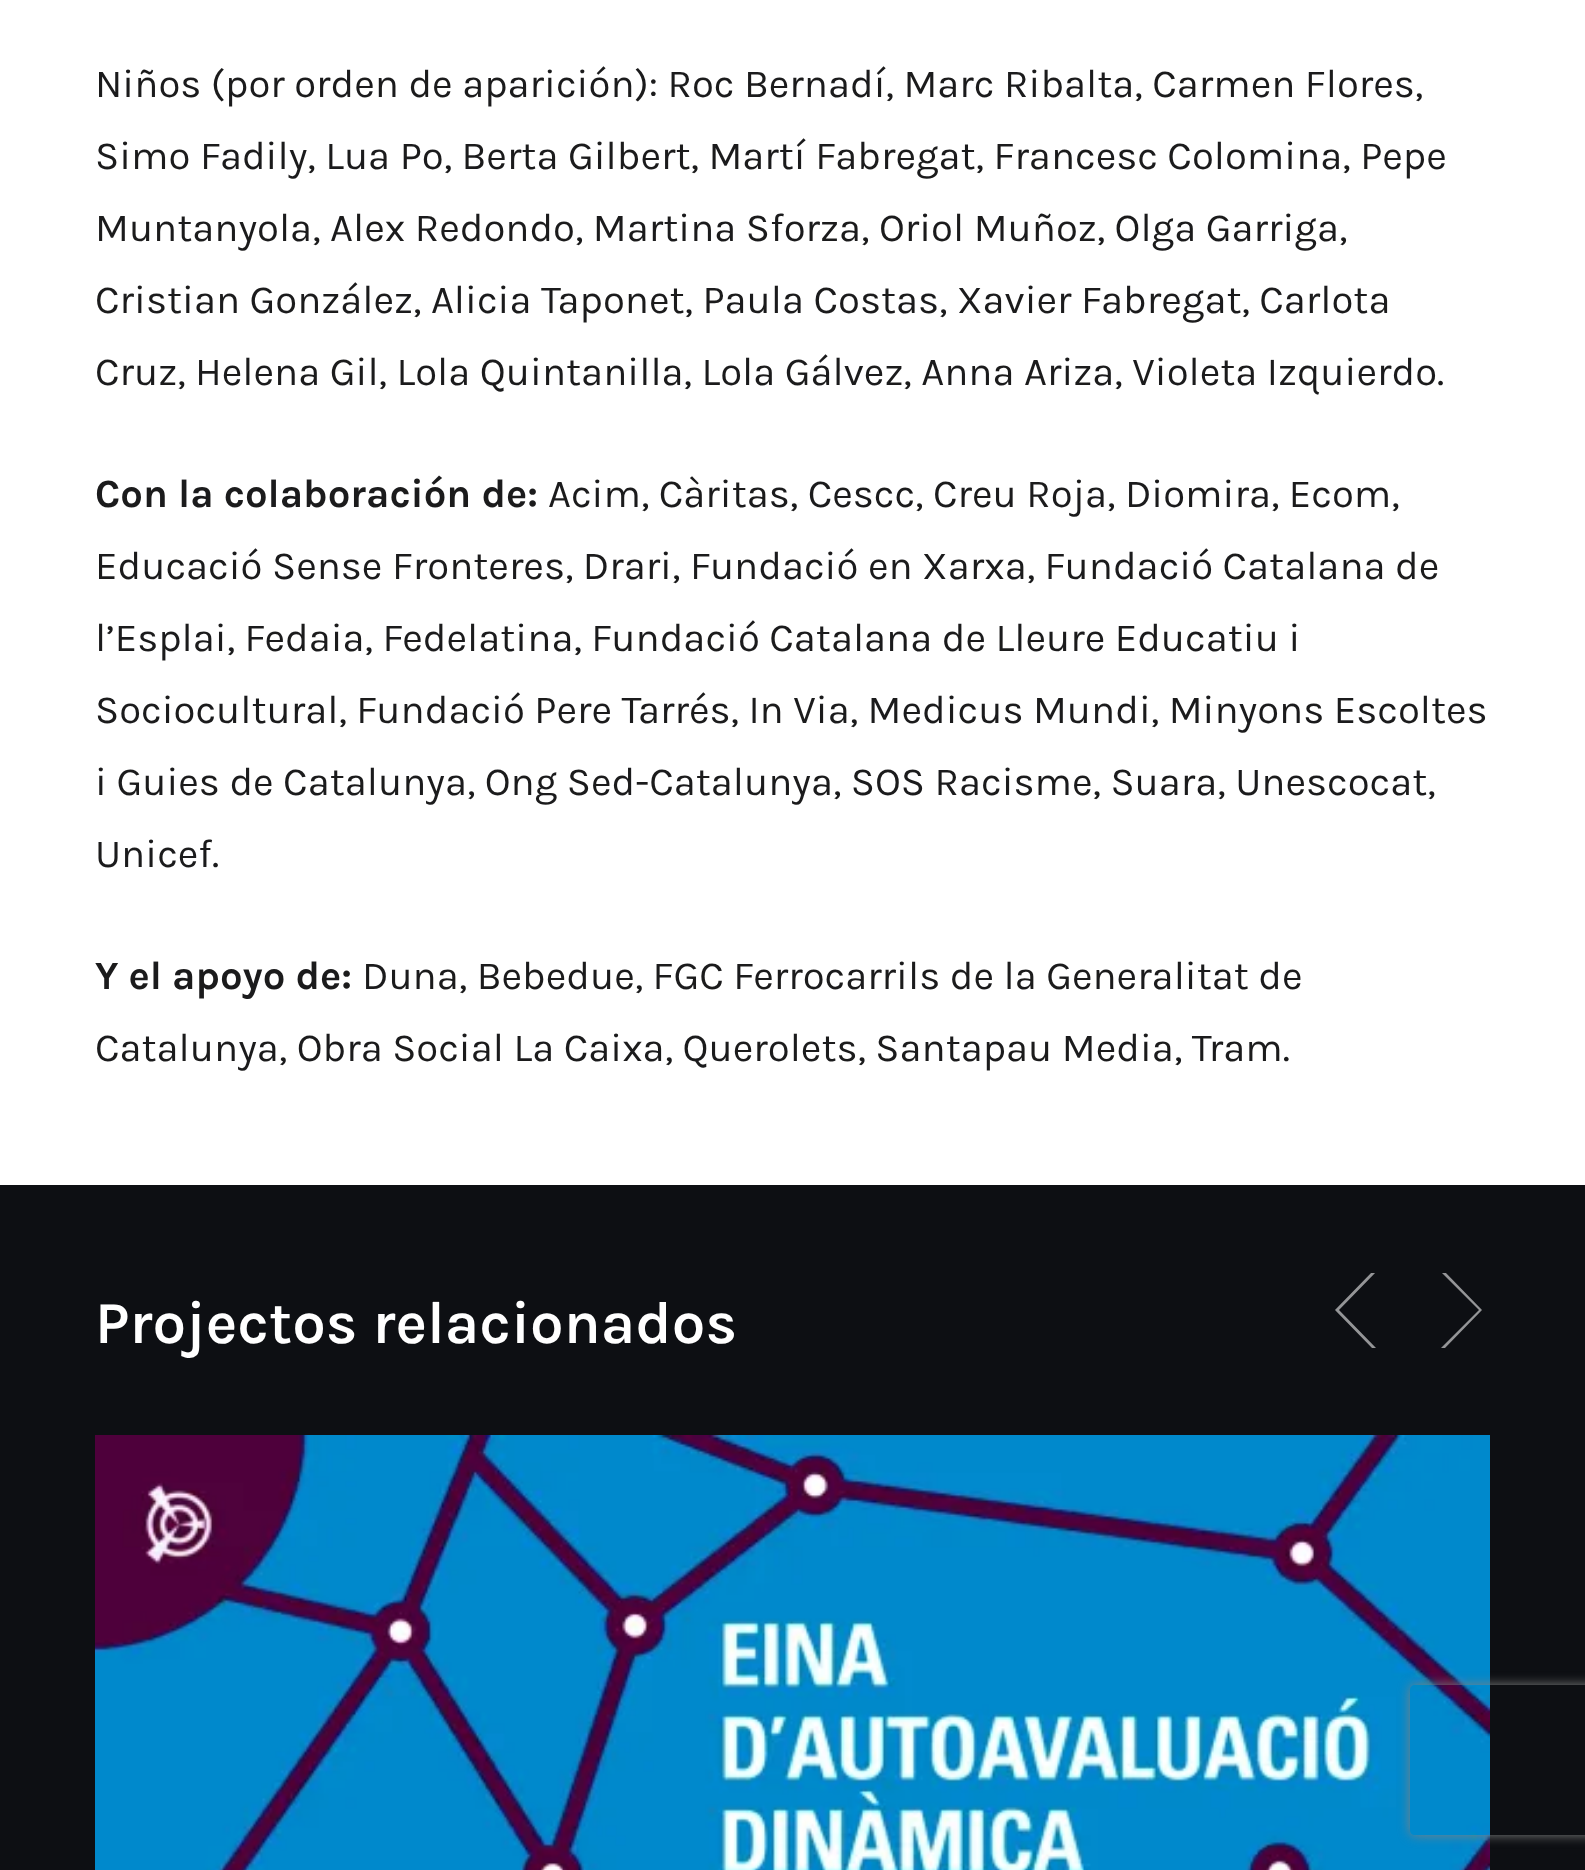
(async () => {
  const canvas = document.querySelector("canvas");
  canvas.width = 1585;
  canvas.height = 1870;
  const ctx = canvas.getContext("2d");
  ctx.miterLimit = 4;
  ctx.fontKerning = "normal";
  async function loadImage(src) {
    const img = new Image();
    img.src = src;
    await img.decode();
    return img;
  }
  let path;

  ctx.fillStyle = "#ffffff";
  ctx.fillRect(0, 0, 1585, 1870);
  ctx.fillStyle = "#0d0f13";
  ctx.fillRect(0, 1185, 1585, 685);
  ctx.save();
  ctx.beginPath();
  ctx.rect(1328, 1273, 75, 75);
  ctx.clip();
  ctx.fillStyle = "#949597";
  path = new Path2D("M1335 1310L1372 1348H1376L1339 1310L1376 1272H1372Z");
  ctx.fill(path);
  ctx.restore();
  ctx.save();
  ctx.beginPath();
  ctx.rect(1415, 1273, 75, 75);
  ctx.clip();
  ctx.fillStyle = "#949597";
  path = new Path2D("M1482 1310L1445 1272H1441L1479 1310L1441 1348H1445Z");
  ctx.fill(path);
  ctx.restore();
  ctx.drawImage(await loadImage("img/1.png"), 95, 1435, 1395, 435);
  ctx.save();
  path = new Path2D("M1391 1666H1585V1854H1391ZM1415 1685H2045C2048 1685 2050 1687 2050 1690V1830C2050 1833 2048 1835 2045 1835H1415C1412 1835 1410 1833 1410 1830V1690C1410 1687 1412 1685 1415 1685Z");
  ctx.clip(path, "evenodd");
  ctx.fillStyle = "#808080";
  ctx.filter = "blur(6px)";
  ctx.beginPath();
  ctx.roundRect(1410, 1685, 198, 150, 5);
  ctx.fill();
  ctx.filter = "none";
  ctx.restore();
  ctx.font = "40px Karla";
  ctx.fillStyle = "#1b1b1c";
  for (const [text, x, y] of [
    ["Niños (por orden de aparición): Roc Bernadí, Marc Ribalta, Carmen Flores,", 95, 97],
    ["Simo Fadily, Lua Po, Berta Gilbert, Martí Fabregat, Francesc Colomina, Pepe", 95, 169],
    ["Muntanyola, Alex Redondo, Martina Sforza, Oriol Muñoz, Olga Garriga,", 95, 241],
    ["Cristian González, Alicia Taponet, Paula Costas, Xavier Fabregat, Carlota", 95, 313],
    ["Cruz, Helena Gil, Lola Quintanilla, Lola Gálvez, Anna Ariza, Violeta Izquierdo.", 95, 385],
  ]) {
    ctx.fillText(text, x, y);
  }
  ctx.font = "bold 40px Karla";
  ctx.fillText("Con la colaboración de:", 95, 507);
  ctx.font = "40px Karla";
  for (const [text, x, y] of [
    ["Acim, Càritas, Cescc, Creu Roja, Diomira, Ecom,", 548, 507],
    ["Educació Sense Fronteres, Drari, Fundació en Xarxa, Fundació Catalana de", 95, 579],
    ["l’Esplai, Fedaia, Fedelatina, Fundació Catalana de Lleure Educatiu i", 95, 651],
    ["Sociocultural, Fundació Pere Tarrés, In Via, Medicus Mundi, Minyons Escoltes", 95, 723],
    ["i Guies de Catalunya, Ong Sed-Catalunya, SOS Racisme, Suara, Unescocat,", 95, 795],
    ["Unicef.", 95, 867],
  ]) {
    ctx.fillText(text, x, y);
  }
  ctx.font = "bold 40px Karla";
  ctx.fillText("Y el apoyo de:", 95, 989);
  ctx.font = "40px Karla";
  ctx.fillText("Duna, Bebedue, FGC Ferrocarrils de la Generalitat de", 362, 989);
  ctx.fillText("Catalunya, Obra Social La Caixa, Querolets, Santapau Media, Tram.", 95, 1061);
  ctx.font = "600 60px Karla";
  ctx.fillStyle = "#ffffff";
  ctx.fillText("Projectos relacionados", 95, 1343);
})();
